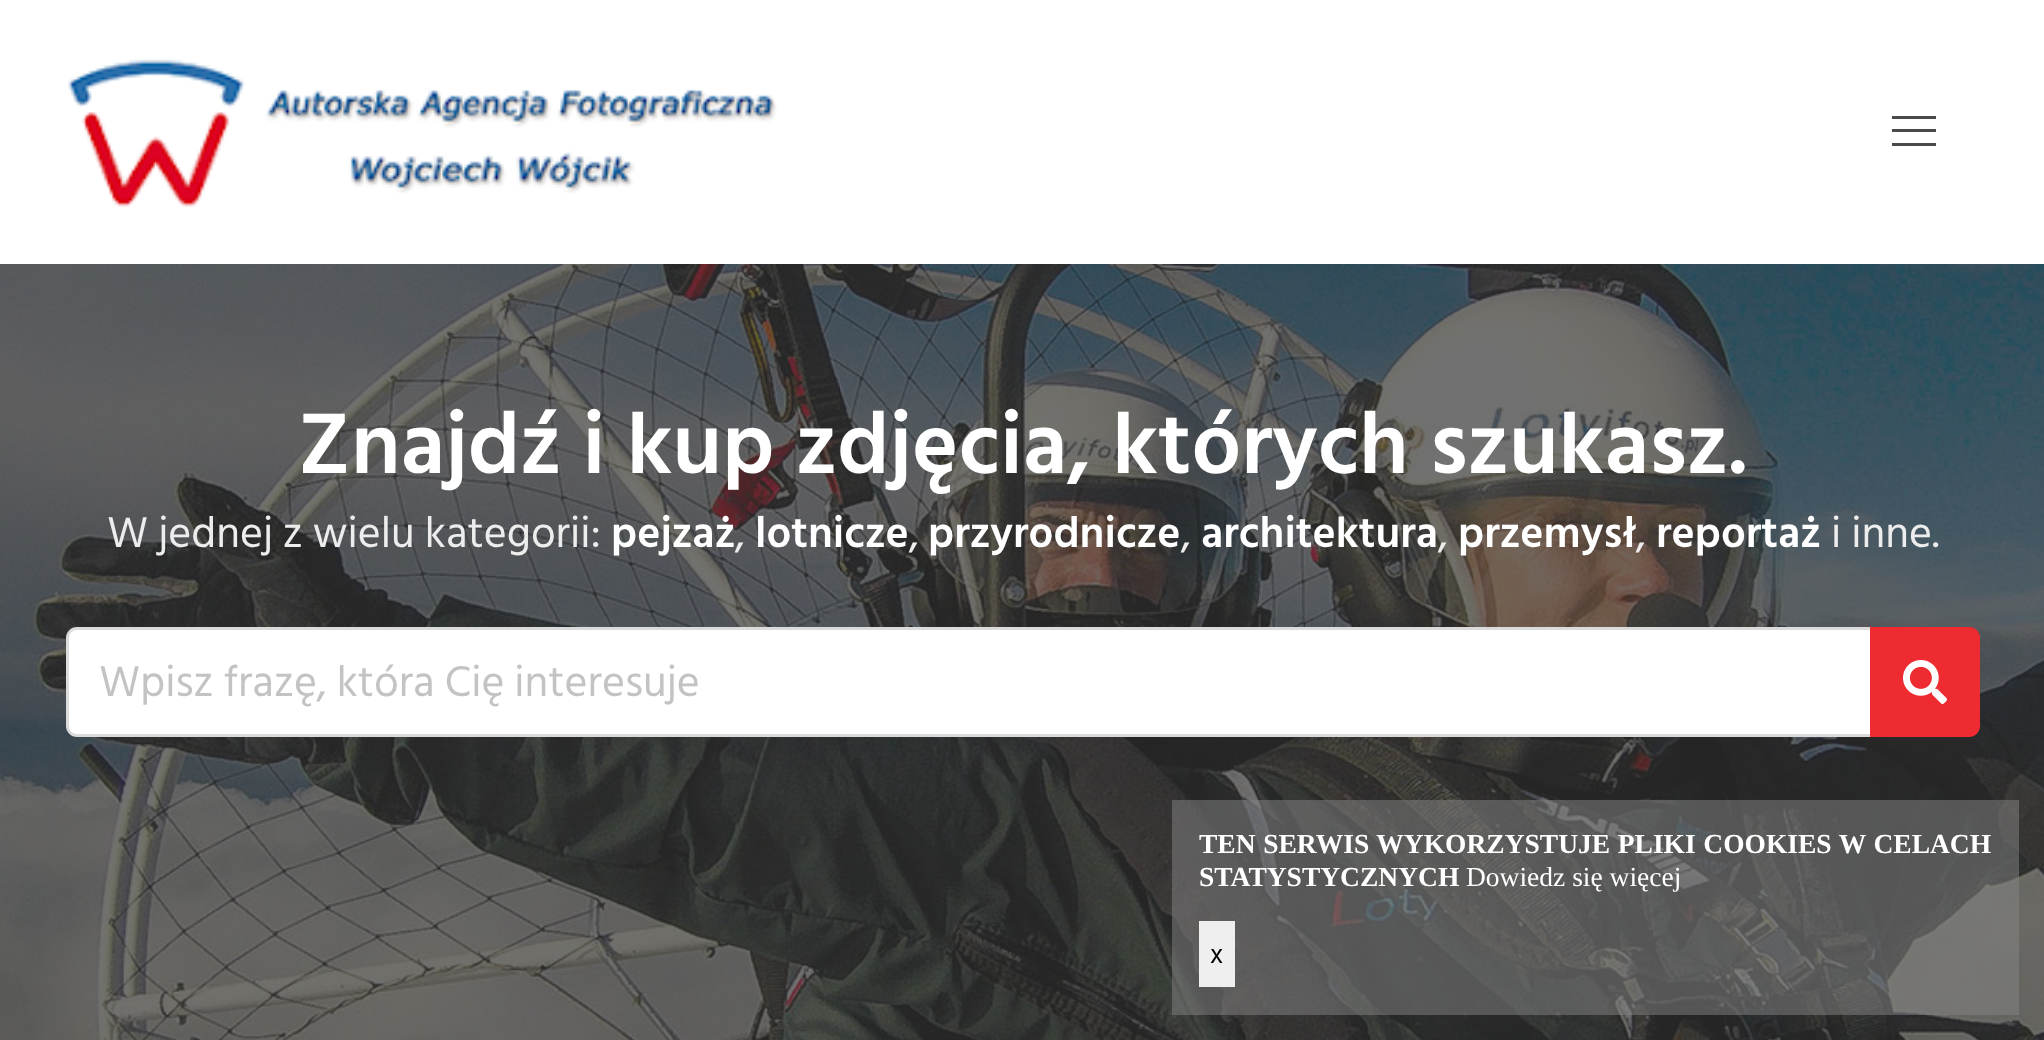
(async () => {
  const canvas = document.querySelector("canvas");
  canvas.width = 2044;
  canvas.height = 1040;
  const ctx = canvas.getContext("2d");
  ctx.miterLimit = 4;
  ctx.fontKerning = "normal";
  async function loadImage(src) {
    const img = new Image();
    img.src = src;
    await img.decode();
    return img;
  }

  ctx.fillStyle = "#ffffff";
  ctx.fillRect(0, 0, 2044, 1040);
  ctx.drawImage(await loadImage("img/1.png"), 68, 59, 709, 148);
  for (const [x, y, w, h, color] of [
    [1892, 116, 44, 3, "#4a4a4a"],
    [1892, 129, 44, 3, "#4a4a4a"],
    [1892, 143, 44, 3, "#4a4a4a"],
    [0, 264, 2044, 776, "#363636"],
  ]) {
    ctx.fillStyle = color;
    ctx.fillRect(x, y, w, h);
  }
  ctx.drawImage(await loadImage("img/2.png"), 0, 264, 2044, 776);
  ctx.fillStyle = "#ffffff";
  ctx.beginPath();
  ctx.roundRect(67.5, 628.5, 1804, 107, [9.5, 0, 0, 9.5]);
  ctx.fill();
  ctx.strokeStyle = "#dbdbdb";
  ctx.lineWidth = 3;
  ctx.stroke();
  ctx.fillStyle = "#ed2b30";
  ctx.beginPath();
  ctx.roundRect(1870, 627, 110, 110, [0, 11, 11, 0]);
  ctx.fill();
  ctx.drawImage(await loadImage("img/3.png"), 1903, 660, 44, 44);
  ctx.fillStyle = "rgba(133, 133, 133, 0.5)";
  ctx.fillRect(1172, 800, 847, 215);
  ctx.fillStyle = "#efefef";
  ctx.fillRect(1199, 921, 36, 66);
  ctx.font = "600 88px Hind Siliguri";
  ctx.fillStyle = "#ffffff";
  ctx.fillText("Znajdź i kup zdjęcia, których szukasz.", 298, 473);
  ctx.font = "44px Hind Siliguri";
  ctx.fillStyle = "#ededed";
  ctx.fillText("W jednej z wielu kategorii:", 107, 547);
  ctx.font = "600 44px Hind Siliguri";
  ctx.fillStyle = "#ffffff";
  ctx.fillText("pejzaż", 611, 547);
  ctx.font = "44px Hind Siliguri";
  ctx.fillStyle = "#ededed";
  ctx.fillText(",", 735, 547);
  ctx.font = "600 44px Hind Siliguri";
  ctx.fillStyle = "#ffffff";
  ctx.fillText("lotnicze", 755, 547);
  ctx.font = "44px Hind Siliguri";
  ctx.fillStyle = "#ededed";
  ctx.fillText(",", 909, 547);
  ctx.font = "600 44px Hind Siliguri";
  ctx.fillStyle = "#ffffff";
  ctx.fillText("przyrodnicze", 928, 547);
  ctx.font = "44px Hind Siliguri";
  ctx.fillStyle = "#ededed";
  ctx.fillText(",", 1181, 547);
  ctx.font = "600 44px Hind Siliguri";
  ctx.fillStyle = "#ffffff";
  ctx.fillText("architektura", 1201, 547);
  ctx.font = "44px Hind Siliguri";
  ctx.fillStyle = "#ededed";
  ctx.fillText(",", 1438, 547);
  ctx.font = "600 44px Hind Siliguri";
  ctx.fillStyle = "#ffffff";
  ctx.fillText("przemysł", 1458, 547);
  ctx.font = "44px Hind Siliguri";
  ctx.fillStyle = "#ededed";
  ctx.fillText(",", 1636, 547);
  ctx.font = "600 44px Hind Siliguri";
  ctx.fillStyle = "#ffffff";
  ctx.fillText("reportaż", 1656, 547);
  ctx.font = "44px Hind Siliguri";
  ctx.fillStyle = "#ededed";
  ctx.fillText("i inne.", 1831, 547);
  ctx.fillStyle = "#c3c3c3";
  ctx.fillText("Wpisz frazę, która Cię interesuje", 99, 696);
  ctx.wordSpacing = "0.75px";
  ctx.font = "bold 27.5px Liberation Serif";
  ctx.fillStyle = "#ffffff";
  ctx.fillText("TEN SERWIS WYKORZYSTUJE PLIKI COOKIES W CELACH", 1199, 853);
  ctx.wordSpacing = "0px";
  ctx.fillText("STATYSTYCZNYCH", 1199, 886);
  ctx.font = "27.5px Liberation Serif";
  ctx.fillText("Dowiedz się więcej", 1466, 886);
  ctx.font = "27.5px Hind Siliguri";
  ctx.fillStyle = "#000000";
  ctx.fillText("x", 1210, 963);
})();
